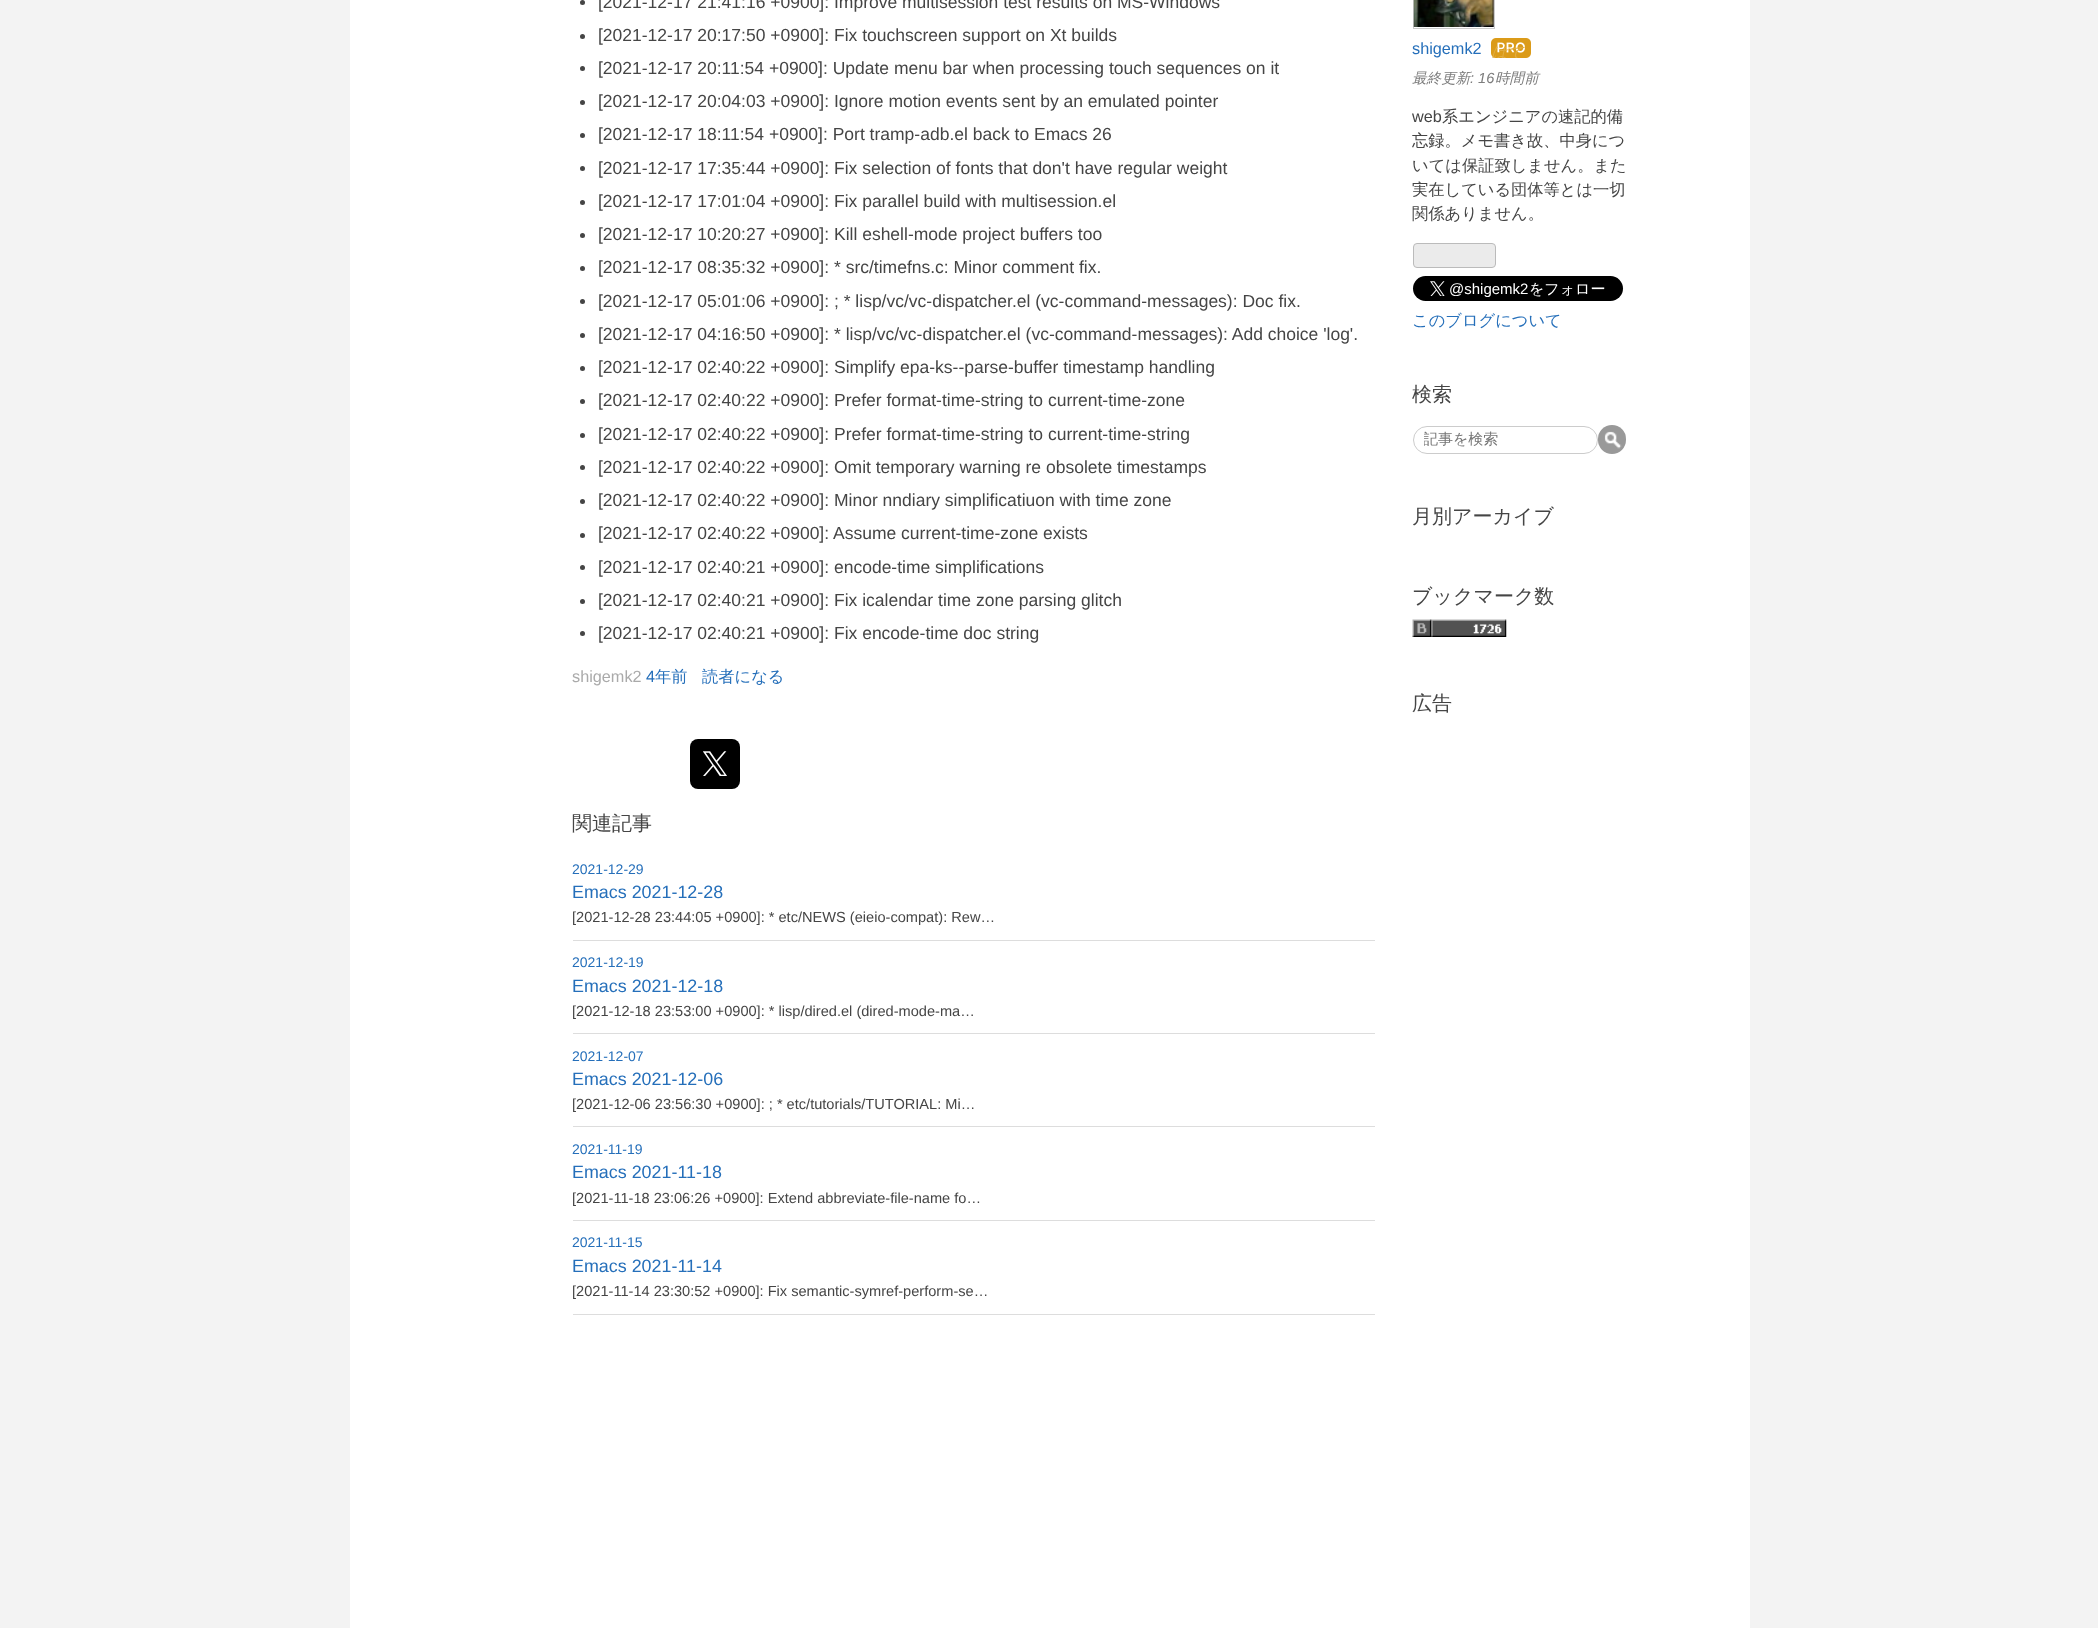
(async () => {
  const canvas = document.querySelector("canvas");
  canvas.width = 2098;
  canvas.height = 1628;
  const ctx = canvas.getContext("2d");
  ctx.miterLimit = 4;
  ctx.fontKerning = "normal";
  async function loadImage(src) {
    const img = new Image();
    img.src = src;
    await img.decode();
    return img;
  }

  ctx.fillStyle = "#f3f3f3";
  ctx.fillRect(0, 0, 2098, 1628);
  ctx.fillStyle = "#ffffff";
  ctx.fillRect(350, 0, 1400, 1628);
  ctx.fillStyle = "#454545";
  ctx.beginPath();
  ctx.arc(582.5, 2.5, 2.5, 0, Math.PI * 2);
  ctx.fill();
  ctx.beginPath();
  ctx.arc(582.5, 36.5, 2.5, 0, Math.PI * 2);
  ctx.fill();
  ctx.beginPath();
  ctx.arc(582.5, 68.5, 2.5, 0, Math.PI * 2);
  ctx.fill();
  ctx.beginPath();
  ctx.arc(582.5, 102.5, 2.5, 0, Math.PI * 2);
  ctx.fill();
  ctx.beginPath();
  ctx.arc(582.5, 135.5, 2.5, 0, Math.PI * 2);
  ctx.fill();
  ctx.beginPath();
  ctx.arc(582.5, 168.5, 2.5, 0, Math.PI * 2);
  ctx.fill();
  ctx.beginPath();
  ctx.arc(582.5, 202.5, 2.5, 0, Math.PI * 2);
  ctx.fill();
  ctx.beginPath();
  ctx.arc(582.5, 235.5, 2.5, 0, Math.PI * 2);
  ctx.fill();
  ctx.beginPath();
  ctx.arc(582.5, 268.5, 2.5, 0, Math.PI * 2);
  ctx.fill();
  ctx.beginPath();
  ctx.arc(582.5, 301.5, 2.5, 0, Math.PI * 2);
  ctx.fill();
  ctx.beginPath();
  ctx.arc(582.5, 335.5, 2.5, 0, Math.PI * 2);
  ctx.fill();
  ctx.beginPath();
  ctx.arc(582.5, 368.5, 2.5, 0, Math.PI * 2);
  ctx.fill();
  ctx.beginPath();
  ctx.arc(582.5, 401.5, 2.5, 0, Math.PI * 2);
  ctx.fill();
  ctx.beginPath();
  ctx.arc(582.5, 435.5, 2.5, 0, Math.PI * 2);
  ctx.fill();
  ctx.beginPath();
  ctx.arc(582.5, 467.5, 2.5, 0, Math.PI * 2);
  ctx.fill();
  ctx.beginPath();
  ctx.arc(582.5, 501.5, 2.5, 0, Math.PI * 2);
  ctx.fill();
  ctx.beginPath();
  ctx.arc(582.5, 535.5, 2.5, 0, Math.PI * 2);
  ctx.fill();
  ctx.beginPath();
  ctx.arc(582.5, 567.5, 2.5, 0, Math.PI * 2);
  ctx.fill();
  ctx.beginPath();
  ctx.arc(582.5, 601.5, 2.5, 0, Math.PI * 2);
  ctx.fill();
  ctx.beginPath();
  ctx.arc(582.5, 633.5, 2.5, 0, Math.PI * 2);
  ctx.fill();
  ctx.fillStyle = "#000000";
  ctx.beginPath();
  ctx.roundRect(690, 739, 50, 50, 8);
  ctx.fill();
  ctx.drawImage(await loadImage("img/1.png"), 703, 751, 24, 25);
  for (const [x, y, w, h, color] of [
    [573, 940, 802, 1, "#dddddd"],
    [573, 1033, 802, 1, "#dddddd"],
    [573, 1126, 802, 1, "#dddddd"],
    [573, 1220, 802, 1, "#dddddd"],
    [573, 1314, 802, 1, "#dddddd"],
  ]) {
    ctx.fillStyle = color;
    ctx.fillRect(x, y, w, h);
  }
  ctx.strokeStyle = "#cccccc";
  ctx.strokeRect(1413.5, -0.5, 81, 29);
  ctx.drawImage(await loadImage("img/2.png"), 1413, 0, 81, 27);
  ctx.drawImage(await loadImage("img/3.png"), 1491, 38, 40, 20);
  ctx.fillStyle = "#ebebeb";
  ctx.beginPath();
  ctx.roundRect(1413.5, 243.5, 82, 24, 3.5);
  ctx.fill();
  ctx.strokeStyle = "#bbbbbb";
  ctx.stroke();
  ctx.fillStyle = "#000000";
  ctx.beginPath();
  ctx.roundRect(1413, 276, 210, 25, 12.5);
  ctx.fill();
  ctx.drawImage(await loadImage("img/4.png"), 1430, 281, 15, 15);
  ctx.beginPath();
  ctx.roundRect(1413.5, 426.5, 184, 27, 13.5);
  ctx.strokeStyle = "#cccccc";
  ctx.stroke();
  ctx.fillStyle = "#999999";
  ctx.beginPath();
  ctx.roundRect(1598, 425, 28, 29, 14);
  ctx.fill();
  ctx.drawImage(await loadImage("img/5.png"), 1604, 431, 18, 18);
  ctx.drawImage(await loadImage("img/6.png"), 1412, 619, 95, 18);
  ctx.font = "17.5px Liberation Sans";
  ctx.fillStyle = "#454545";
  for (const [text, x, y] of [
    ["[2021-12-17 21:41:16 +0900]: Improve multisession test results on MS-Windows", 598, 8],
    ["[2021-12-17 20:17:50 +0900]: Fix touchscreen support on Xt builds", 598, 41],
    ["[2021-12-17 20:11:54 +0900]: Update menu bar when processing touch sequences on it", 598, 74],
    ["[2021-12-17 20:04:03 +0900]: Ignore motion events sent by an emulated pointer", 598, 107],
    ["[2021-12-17 18:11:54 +0900]: Port tramp-adb.el back to Emacs 26", 598, 140],
    ["[2021-12-17 17:35:44 +0900]: Fix selection of fonts that don't have regular weight", 598, 174],
    ["[2021-12-17 17:01:04 +0900]: Fix parallel build with multisession.el", 598, 207],
    ["[2021-12-17 10:20:27 +0900]: Kill eshell-mode project buffers too", 598, 240],
    ["[2021-12-17 08:35:32 +0900]: * src/timefns.c: Minor comment fix.", 598, 273],
    ["[2021-12-17 05:01:06 +0900]: ; * lisp/vc/vc-dispatcher.el (vc-command-messages): Doc fix.", 598, 307],
    ["[2021-12-17 04:16:50 +0900]: * lisp/vc/vc-dispatcher.el (vc-command-messages): Add choice 'log'.", 598, 340],
    ["[2021-12-17 02:40:22 +0900]: Simplify epa-ks--parse-buffer timestamp handling", 598, 373],
    ["[2021-12-17 02:40:22 +0900]: Prefer format-time-string to current-time-zone", 598, 406],
    ["[2021-12-17 02:40:22 +0900]: Prefer format-time-string to current-time-string", 598, 440],
    ["[2021-12-17 02:40:22 +0900]: Omit temporary warning re obsolete timestamps", 598, 473],
    ["[2021-12-17 02:40:22 +0900]: Minor nndiary simplificatiuon with time zone", 598, 506],
    ["[2021-12-17 02:40:22 +0900]: Assume current-time-zone exists", 598, 539],
    ["[2021-12-17 02:40:21 +0900]: encode-time simplifications", 598, 573],
    ["[2021-12-17 02:40:21 +0900]: Fix icalendar time zone parsing glitch", 598, 606],
    ["[2021-12-17 02:40:21 +0900]: Fix encode-time doc string", 598, 639],
  ]) {
    ctx.fillText(text, x, y);
  }
  ctx.font = "16.25px Liberation Sans";
  ctx.fillStyle = "#aaaaaa";
  ctx.fillText("shigemk2", 572, 682);
  ctx.fillStyle = "#256fba";
  ctx.fillText("4", 646, 682);
  ctx.font = "500 16.25px WenQuanYi Zen Hei";
  ctx.fillText("年前", 655, 682);
  ctx.fillText("読者になる", 702, 682);
  ctx.font = "500 20px WenQuanYi Zen Hei";
  ctx.fillStyle = "#454545";
  ctx.fillText("関連記事", 572, 830);
  ctx.font = "14px Liberation Sans";
  ctx.fillStyle = "#256fba";
  ctx.fillText("2021-12-29", 572, 874);
  ctx.font = "17.9px Liberation Sans";
  ctx.fillText("Emacs 2021-12-28", 572, 898);
  ctx.font = "14.6px Liberation Sans";
  ctx.fillStyle = "#454545";
  ctx.fillText("[2021-12-28 23:44:05 +0900]: * etc/NEWS (eieio-compat): Rew…", 572, 922);
  ctx.font = "14px Liberation Sans";
  ctx.fillStyle = "#256fba";
  ctx.fillText("2021-12-19", 572, 967);
  ctx.font = "17.9px Liberation Sans";
  ctx.fillText("Emacs 2021-12-18", 572, 992);
  ctx.font = "14.6px Liberation Sans";
  ctx.fillStyle = "#454545";
  ctx.fillText("[2021-12-18 23:53:00 +0900]: * lisp/dired.el (dired-mode-ma…", 572, 1016);
  ctx.font = "14px Liberation Sans";
  ctx.fillStyle = "#256fba";
  ctx.fillText("2021-12-07", 572, 1061);
  ctx.font = "17.9px Liberation Sans";
  ctx.fillText("Emacs 2021-12-06", 572, 1085);
  ctx.font = "14.6px Liberation Sans";
  ctx.fillStyle = "#454545";
  ctx.fillText("[2021-12-06 23:56:30 +0900]: ; * etc/tutorials/TUTORIAL: Mi…", 572, 1109);
  ctx.font = "14px Liberation Sans";
  ctx.fillStyle = "#256fba";
  ctx.fillText("2021-11-19", 572, 1154);
  ctx.font = "17.9px Liberation Sans";
  ctx.fillText("Emacs 2021-11-18", 572, 1178);
  ctx.font = "14.6px Liberation Sans";
  ctx.fillStyle = "#454545";
  ctx.fillText("[2021-11-18 23:06:26 +0900]: Extend abbreviate-file-name fo…", 572, 1203);
  ctx.font = "14px Liberation Sans";
  ctx.fillStyle = "#256fba";
  ctx.fillText("2021-11-15", 572, 1247);
  ctx.font = "17.9px Liberation Sans";
  ctx.fillText("Emacs 2021-11-14", 572, 1272);
  ctx.font = "14.6px Liberation Sans";
  ctx.fillStyle = "#454545";
  ctx.fillText("[2021-11-14 23:30:52 +0900]: Fix semantic-symref-perform-se…", 572, 1296);
  ctx.font = "16.25px Liberation Sans";
  ctx.fillStyle = "#256fba";
  ctx.fillText("shigemk2", 1412, 54);
  ctx.save();
  ctx.beginPath();
  ctx.rect(1491, 38, 40, 20);
  ctx.clip();
  ctx.font = "italic 500 16.25px WenQuanYi Zen Hei";
  ctx.fillStyle = "#e1ad41";
  ctx.fillText("はて", 1491, 58);
  ctx.restore();
  ctx.font = "italic 500 14.6px WenQuanYi Zen Hei";
  ctx.fillStyle = "#7d7d7d";
  ctx.fillText("最終更新", 1412, 83);
  ctx.font = "italic 14.6px Liberation Sans";
  ctx.fillText(": 16", 1470, 83);
  ctx.font = "italic 500 14.6px WenQuanYi Zen Hei";
  ctx.fillText("時間前", 1495, 83);
  ctx.font = "16.25px Liberation Sans";
  ctx.fillStyle = "#454545";
  ctx.fillText("web", 1412, 122);
  ctx.font = "500 16.25px WenQuanYi Zen Hei";
  for (const [text, x, y] of [
    ["系エンジニアの速記的備", 1442, 122],
    ["忘録。メモ書き故、中身につ", 1412, 146],
    ["いては保証致しません。また", 1412, 171],
    ["実在している団体等とは一切", 1412, 195],
    ["関係ありません。", 1412, 219],
  ]) {
    ctx.fillText(text, x, y);
  }
  ctx.font = "15px Liberation Sans";
  ctx.fillStyle = "#ffffff";
  ctx.fillText("@shigemk2", 1449, 294);
  ctx.font = "500 15px WenQuanYi Zen Hei";
  ctx.fillText("をフォロー", 1529, 294);
  ctx.font = "500 16.25px WenQuanYi Zen Hei";
  ctx.fillStyle = "#256fba";
  ctx.fillText("このブログについて", 1412, 326);
  ctx.font = "500 20px WenQuanYi Zen Hei";
  ctx.fillStyle = "#454545";
  ctx.fillText("検索", 1412, 401);
  ctx.save();
  ctx.beginPath();
  ctx.rect(1424, 430, 162, 21);
  ctx.clip();
  ctx.font = "500 15px WenQuanYi Zen Hei";
  ctx.fillStyle = "#757575";
  ctx.fillText("記事を検索", 1423, 444);
  ctx.restore();
  for (const [text, x, y] of [
    ["月別アーカイブ", 1412, 523],
    ["ブックマーク数", 1412, 603],
    ["広告", 1412, 710],
  ]) {
    ctx.fillText(text, x, y);
  }
})();
